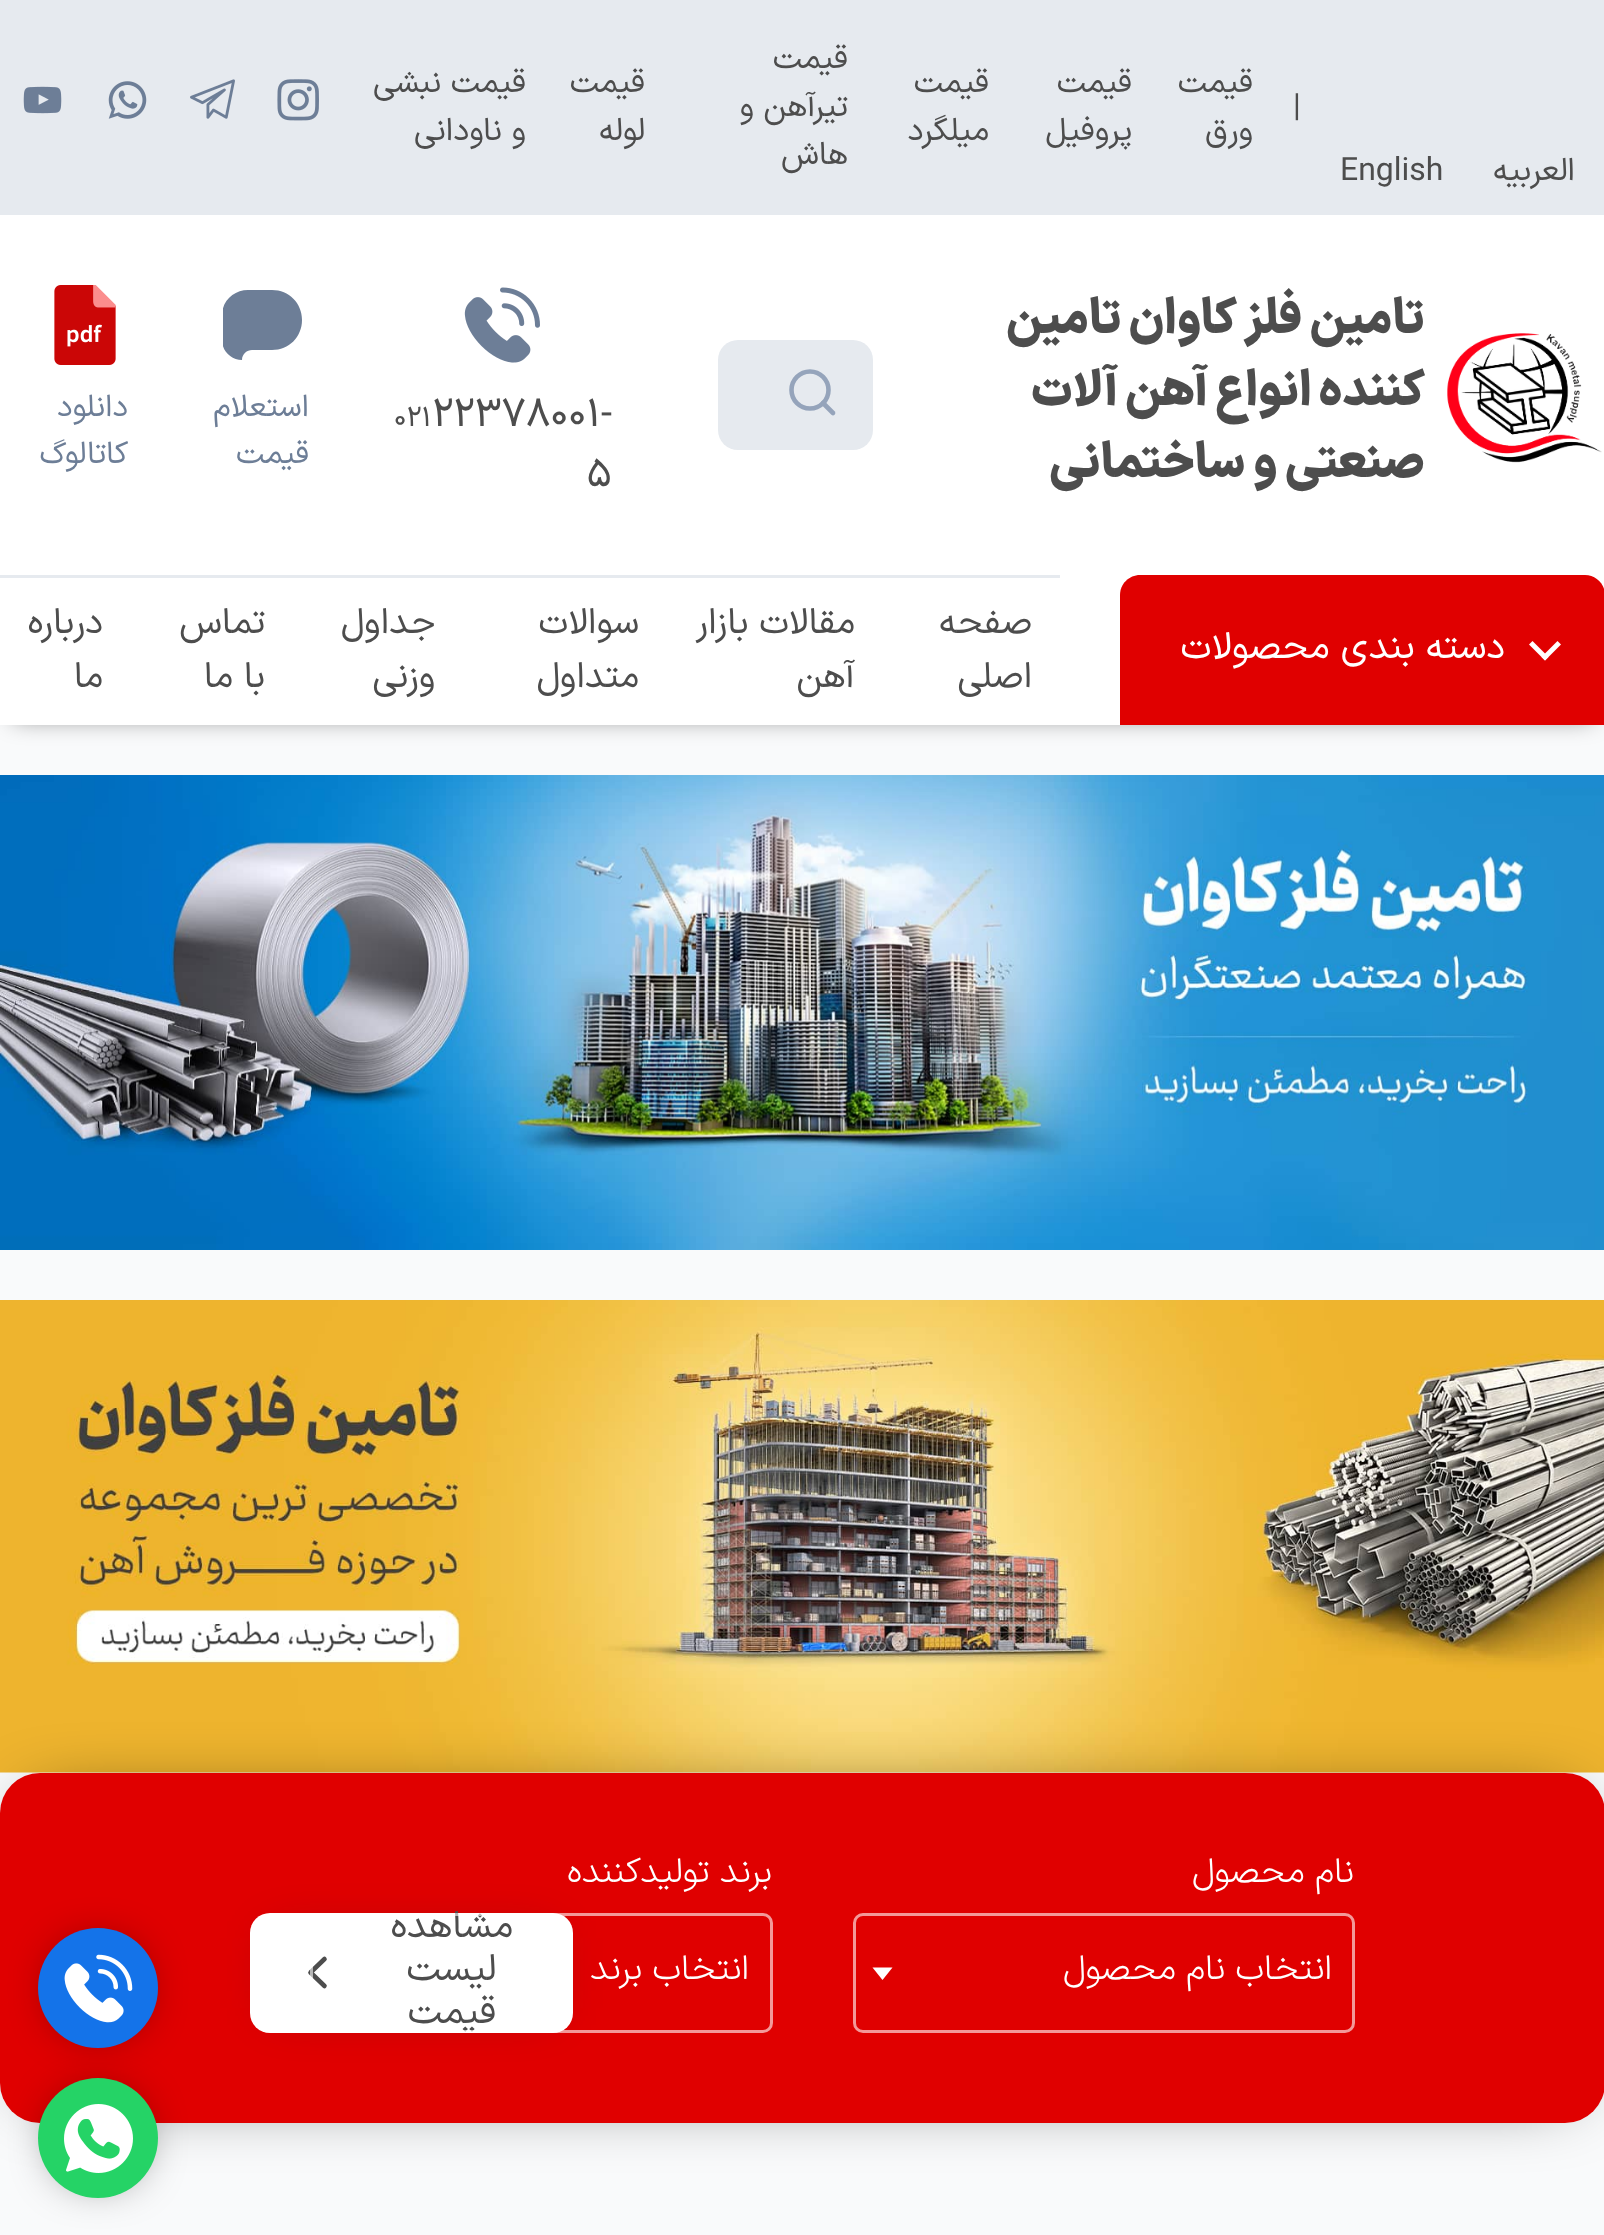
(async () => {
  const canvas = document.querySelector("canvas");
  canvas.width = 1604;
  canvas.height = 2235;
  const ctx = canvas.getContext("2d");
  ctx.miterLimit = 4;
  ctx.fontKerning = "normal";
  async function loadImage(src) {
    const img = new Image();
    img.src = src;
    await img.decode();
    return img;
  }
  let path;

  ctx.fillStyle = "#f9fafb";
  ctx.fillRect(0, 0, 1604, 2235);
  ctx.fillStyle = "rgba(0, 0, 0, 0.5)";
  ctx.filter = "blur(12.5px)";
  ctx.beginPath();
  ctx.rect(13, 18, 1580, 700);
  ctx.fill();
  ctx.filter = "none";
  ctx.fillStyle = "#e6eaef";
  ctx.fillRect(0, 0, 1604, 215);
  ctx.drawImage(await loadImage("img/1.png"), 277, 79, 42, 42);
  ctx.drawImage(await loadImage("img/2.png"), 190, 79, 45, 40);
  ctx.drawImage(await loadImage("img/3.png"), 108, 81, 39, 38);
  ctx.drawImage(await loadImage("img/4.png"), 23, 86, 39, 28);
  ctx.fillStyle = "#ffffff";
  ctx.fillRect(0, 215, 1604, 510);
  ctx.drawImage(await loadImage("img/5.png"), 1447, 333, 155, 130);
  ctx.fillStyle = "#e6eaef";
  ctx.beginPath();
  ctx.roundRect(718, 340, 155, 110, 20);
  ctx.fill();
  ctx.beginPath();
  ctx.arc(810, 390, 18.5, 0, Math.PI * 2);
  ctx.strokeStyle = "#95a4bb";
  ctx.lineWidth = 4.6;
  ctx.stroke();
  path = new Path2D("M833 413L823 403");
  ctx.lineCap = "round";
  ctx.lineJoin = "round";
  ctx.stroke(path);
  ctx.drawImage(await loadImage("img/6.png"), 464, 287, 76, 76);
  ctx.save();
  ctx.beginPath();
  ctx.rect(223, 285, 80, 80);
  ctx.clip();
  ctx.fillStyle = "#6d7e97";
  path = new Path2D("M222 340C222 351 231 360 242 360C242 354 247 350 252 350H272C289 350 302 337 302 320C302 303 289 290 272 290H248C234 290 222 301 222 315Z");
  ctx.fill(path);
  ctx.restore();
  ctx.drawImage(await loadImage("img/7.png"), 54, 285, 62, 80);
  ctx.fillStyle = "#e00000";
  path = new Path2D("M1140 575H1585C1596 575 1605 584 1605 595V725H1120V595C1120 584 1129 575 1140 575Z");
  ctx.fill(path);
  ctx.fillStyle = "#ffffff";
  path = new Path2D("M1532.5 641L1548.5 657L1545 660.5L1529 644.5Z");
  ctx.fill(path);
  path = new Path2D("M1541.5 657L1557.5 641L1561 644.5L1545 660.5Z");
  ctx.fill(path);
  ctx.fillStyle = "#e6eaef";
  ctx.fillRect(0, 575, 1060, 3);
  ctx.drawImage(await loadImage("img/8.png"), 0, 775, 1604, 475);
  ctx.drawImage(await loadImage("img/9.png"), 0, 1300, 1604, 473);
  ctx.drawImage(await loadImage("img/10.png"), 0, 816, 1525, 325);
  ctx.fillStyle = "rgba(0, 0, 0, 0.8)";
  ctx.filter = "blur(37.5px)";
  ctx.beginPath();
  ctx.roundRect(38, 1810, 1530, 275, 2.5);
  ctx.fill();
  ctx.filter = "none";
  ctx.fillStyle = "#e00000";
  ctx.beginPath();
  ctx.roundRect(0, 1773, 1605, 350, 40);
  ctx.fill();
  ctx.beginPath();
  ctx.roundRect(854.5, 1914.5, 499, 117, 8.5);
  ctx.strokeStyle = "#f39999";
  ctx.lineWidth = 3;
  ctx.lineJoin = "miter";
  ctx.stroke();
  ctx.fillStyle = "#ffffff";
  path = new Path2D("M872.5 1967.5H892.5L882.5 1980Z");
  ctx.fill(path);
  ctx.fillStyle = "rgba(6, 24, 50, 0.3)";
  ctx.filter = "blur(25px)";
  ctx.beginPath();
  ctx.rect(275, 1938, 273, 70);
  ctx.fill();
  ctx.filter = "none";
  ctx.fillStyle = "#ffffff";
  ctx.beginPath();
  ctx.roundRect(250, 1913, 323, 120, 20);
  ctx.fill();
  path = new Path2D("M324.5 1986L310.5 1972.5L324.5 1959");
  ctx.strokeStyle = "#4d4d4d";
  ctx.lineWidth = 4.6;
  ctx.lineJoin = "round";
  ctx.stroke(path);
  ctx.fillStyle = "#000000";
  ctx.filter = "blur(25px)";
  ctx.beginPath();
  ctx.roundRect(63, 2103, 70, 70, 35);
  ctx.fill();
  ctx.filter = "none";
  ctx.fillStyle = "#25d366";
  ctx.beginPath();
  ctx.arc(98, 2138, 60, 0, Math.PI * 2);
  ctx.fill();
  ctx.fillStyle = "#000000";
  ctx.filter = "blur(25px)";
  ctx.beginPath();
  ctx.roundRect(63, 1953, 70, 70, 35);
  ctx.fill();
  ctx.filter = "none";
  ctx.fillStyle = "#1473e9";
  ctx.beginPath();
  ctx.arc(98, 1988, 60, 0, Math.PI * 2);
  ctx.fill();
  ctx.drawImage(await loadImage("img/11.png"), 64, 1954, 69, 69);
  ctx.drawImage(await loadImage("img/12.png"), 64, 2104, 69, 69);
  ctx.font = "32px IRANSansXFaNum";
  ctx.fillStyle = "#4d4d4d";
  ctx.fillText("|", 1293, 116);
  ctx.direction = "rtl";
  for (const [text, x, y] of [
    ["قیمت", 1253, 92],
    ["ورق", 1253, 140],
    ["قیمت", 1132, 92],
    ["پروفیل", 1132, 140],
    ["قیمت", 989, 92],
    ["میلگرد", 989, 140],
    ["قیمت", 848, 68],
    ["تیرآهن و", 848, 116],
    ["هاش", 848, 164],
    ["قیمت", 645, 92],
    ["لوله", 645, 140],
    ["قیمت نبشی", 526, 92],
    ["و ناودانی", 526, 140],
    ["العربیه", 1575, 180],
  ]) {
    ctx.fillText(text, x, y);
  }
  ctx.direction = "ltr";
  ctx.fillText("English", 1340, 180);
  ctx.direction = "rtl";
  ctx.font = "900 48px IRANSansXFaNum";
  for (const [text, x, y] of [
    ["تامین فلز کاوان تامین", 1425, 333],
    ["کننده انواع آهن آلات", 1425, 405],
    ["صنعتی و ساختمانی", 1425, 477],
  ]) {
    ctx.fillText(text, x, y);
  }
  ctx.direction = "ltr";
  ctx.font = "40px IRANSansXFaNum";
  ctx.fillText("22378001-", 432, 426);
  ctx.font = "28px IRANSansXFaNum";
  ctx.fillText("021", 394, 426);
  ctx.font = "40px IRANSansXFaNum";
  ctx.fillText("5", 587, 486);
  ctx.direction = "rtl";
  ctx.font = "31px IRANSansXFaNum";
  ctx.fillStyle = "#6d7e97";
  for (const [text, x, y] of [
    ["استعلام", 309, 416],
    ["قیمت", 309, 463],
    ["دانلود", 128, 416],
    ["کاتالوگ", 128, 463],
  ]) {
    ctx.fillText(text, x, y);
  }
  ctx.font = "37.5px IRANSansXFaNum";
  ctx.fillStyle = "#ffffff";
  ctx.fillText("دسته بندی محصولات", 1505, 658);
  ctx.font = "36px IRANSansXFaNum";
  ctx.fillStyle = "#4d4d4d";
  for (const [text, x, y] of [
    ["صفحه", 1032, 633],
    ["اصلی", 1032, 687],
    ["مقالات بازار", 855, 633],
    ["آهن", 855, 687],
    ["سوالات", 639, 633],
    ["متداول", 639, 687],
    ["جداول", 435, 633],
    ["وزنی", 435, 687],
    ["تماس", 265, 633],
    ["با ما", 265, 687],
    ["درباره", 103, 633],
    ["ما", 103, 687],
  ]) {
    ctx.fillText(text, x, y);
  }
  ctx.font = "300 35px IRANSansXFaNum";
  ctx.fillStyle = "#ffffff";
  for (const [text, x, y] of [
    ["نام محصول", 1354, 1882],
    ["انتخاب نام محصول", 1332, 1979],
    ["برند تولیدکننده", 772, 1882],
  ]) {
    ctx.fillText(text, x, y);
  }
  ctx.font = "37.5px IRANSansXFaNum";
  ctx.fillStyle = "#4d4d4d";
  for (const [text, x, y] of [
    ["مشاهده", 513, 1937],
    ["لیست", 496, 1980],
    ["قیمت‌", 496, 2023],
  ]) {
    ctx.fillText(text, x, y);
  }
  ctx.beginPath();
  ctx.roundRect(311.5, 1914.5, 460, 117, 8.5);
  ctx.strokeStyle = "rgba(255, 255, 255, 0.6)";
  ctx.lineWidth = 3;
  ctx.lineJoin = "miter";
  ctx.stroke();
  ctx.font = "300 35px IRANSansXFaNum";
  ctx.fillStyle = "#ffffff";
  ctx.fillText("انتخاب برند", 749, 1979);
})();
